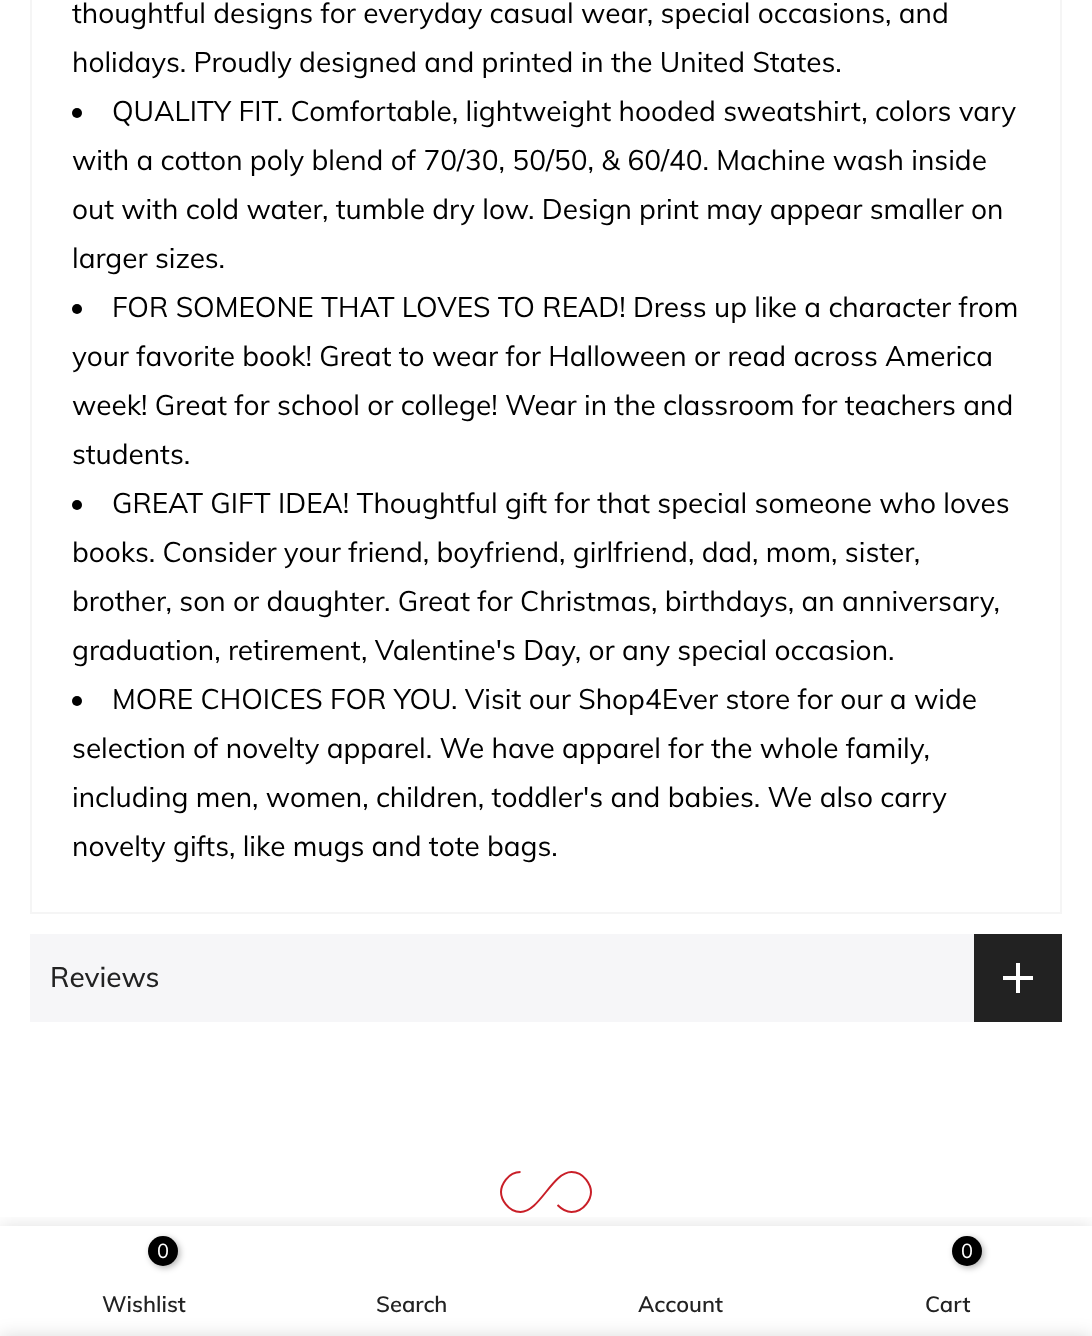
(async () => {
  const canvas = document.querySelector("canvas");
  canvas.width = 1092;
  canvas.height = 1336;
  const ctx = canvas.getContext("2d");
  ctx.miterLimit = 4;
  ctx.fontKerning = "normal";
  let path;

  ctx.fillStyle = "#ffffff";
  ctx.fillRect(0, 0, 1092, 1336);
  for (const [x, y, w, h, color] of [
    [1060, 0, 2, 914, "#f5f5f5"],
    [30, 912, 1032, 2, "#f5f5f5"],
    [30, 0, 2, 914, "#f5f5f5"],
  ]) {
    ctx.fillStyle = color;
    ctx.fillRect(x, y, w, h);
  }
  ctx.fillStyle = "#000000";
  ctx.beginPath();
  ctx.arc(77, 113, 5, 0, Math.PI * 2);
  ctx.fill();
  ctx.beginPath();
  ctx.arc(77, 309, 5, 0, Math.PI * 2);
  ctx.fill();
  ctx.beginPath();
  ctx.arc(77, 505, 5, 0, Math.PI * 2);
  ctx.fill();
  ctx.beginPath();
  ctx.arc(77, 701, 5, 0, Math.PI * 2);
  ctx.fill();
  for (const [x, y, w, h, color] of [
    [30, 934, 944, 88, "#f6f6f8"],
    [974, 934, 88, 88, "#222222"],
    [1016, 963, 4, 30, "#ffffff"],
    [1003, 976, 30, 4, "#ffffff"],
  ]) {
    ctx.fillStyle = color;
    ctx.fillRect(x, y, w, h);
  }
  path = new Path2D("M520.5 1172C507.5 1172 501 1185.5 501 1192C501 1198.5 507.5 1212 520.5 1212C539.5 1212 552.5 1172 571.5 1172C584.5 1172 591 1185.5 591 1192C591 1198.5 584.5 1212 571.5 1212C566.5 1212 562 1209.5 557.5 1205");
  ctx.strokeStyle = "#c91f28";
  ctx.lineWidth = 2;
  ctx.stroke(path);
  ctx.save();
  ctx.beginPath();
  ctx.rect(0, 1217, 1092, 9);
  ctx.clip();
  ctx.fillStyle = "rgba(0, 0, 0, 0.12)";
  ctx.filter = "blur(9px)";
  ctx.beginPath();
  ctx.rect(0, 1226, 1092, 110);
  ctx.fill();
  ctx.filter = "none";
  ctx.restore();
  ctx.fillStyle = "rgba(0, 0, 0, 0.3)";
  ctx.filter = "blur(3px)";
  ctx.beginPath();
  ctx.roundRect(150, 1238, 30, 30, 15);
  ctx.fill();
  ctx.filter = "none";
  ctx.fillStyle = "#000000";
  ctx.beginPath();
  ctx.arc(163, 1251, 15, 0, Math.PI * 2);
  ctx.fill();
  ctx.fillStyle = "rgba(0, 0, 0, 0.3)";
  ctx.filter = "blur(3px)";
  ctx.beginPath();
  ctx.roundRect(954, 1238, 30, 30, 15);
  ctx.fill();
  ctx.filter = "none";
  ctx.fillStyle = "#000000";
  ctx.beginPath();
  ctx.arc(967, 1251, 15, 0, Math.PI * 2);
  ctx.fill();
  ctx.fillStyle = "rgba(0, 0, 0, 0.14)";
  ctx.filter = "blur(9px)";
  ctx.beginPath();
  ctx.rect(0, 1336, 1092, 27);
  ctx.fill();
  ctx.filter = "none";
  ctx.font = "28px Muli";
  ctx.fillStyle = "#000000";
  for (const [text, x, y] of [
    ["thoughtful designs for everyday casual wear, special occasions, and", 72, 23],
    ["holidays. Proudly designed and printed in the United States.", 72, 72],
    ["QUALITY FIT. Comfortable, lightweight hooded sweatshirt, colors vary", 112, 121],
    ["with a cotton poly blend of 70/30, 50/50, & 60/40. Machine wash inside", 72, 170],
    ["out with cold water, tumble dry low. Design print may appear smaller on", 72, 219],
    ["larger sizes.", 72, 268],
    ["FOR SOMEONE THAT LOVES TO READ! Dress up like a character from", 112, 317],
    ["your favorite book! Great to wear for Halloween or read across America", 72, 366],
    ["week! Great for school or college! Wear in the classroom for teachers and", 72, 415],
    ["students.", 72, 464],
    ["GREAT GIFT IDEA! Thoughtful gift for that special someone who loves", 112, 513],
    ["books. Consider your friend, boyfriend, girlfriend, dad, mom, sister,", 72, 562],
    ["brother, son or daughter. Great for Christmas, birthdays, an anniversary,", 72, 611],
    ["graduation, retirement, Valentine's Day, or any special occasion.", 72, 660],
    ["MORE CHOICES FOR YOU. Visit our Shop4Ever store for our a wide", 112, 709],
    ["selection of novelty apparel. We have apparel for the whole family,", 72, 758],
    ["including men, women, children, toddler's and babies. We also carry", 72, 807],
    ["novelty gifts, like mugs and tote bags.", 72, 856],
  ]) {
    ctx.fillText(text, x, y);
  }
  ctx.font = "500 28px Muli";
  ctx.fillStyle = "#222222";
  ctx.fillText("Reviews", 50, 987);
  ctx.font = "20px Muli";
  ctx.fillStyle = "#ffffff";
  ctx.fillText("0", 157, 1258);
  ctx.font = "600 22px Muli";
  ctx.fillStyle = "#222222";
  for (const [text, x, y] of [
    ["Wishlist", 102, 1312],
    ["Search", 376, 1312],
    ["Account", 638, 1312],
  ]) {
    ctx.fillText(text, x, y);
  }
  ctx.font = "20px Muli";
  ctx.fillStyle = "#ffffff";
  ctx.fillText("0", 961, 1258);
  ctx.font = "600 22px Muli";
  ctx.fillStyle = "#222222";
  ctx.fillText("Cart", 925, 1312);
})();
